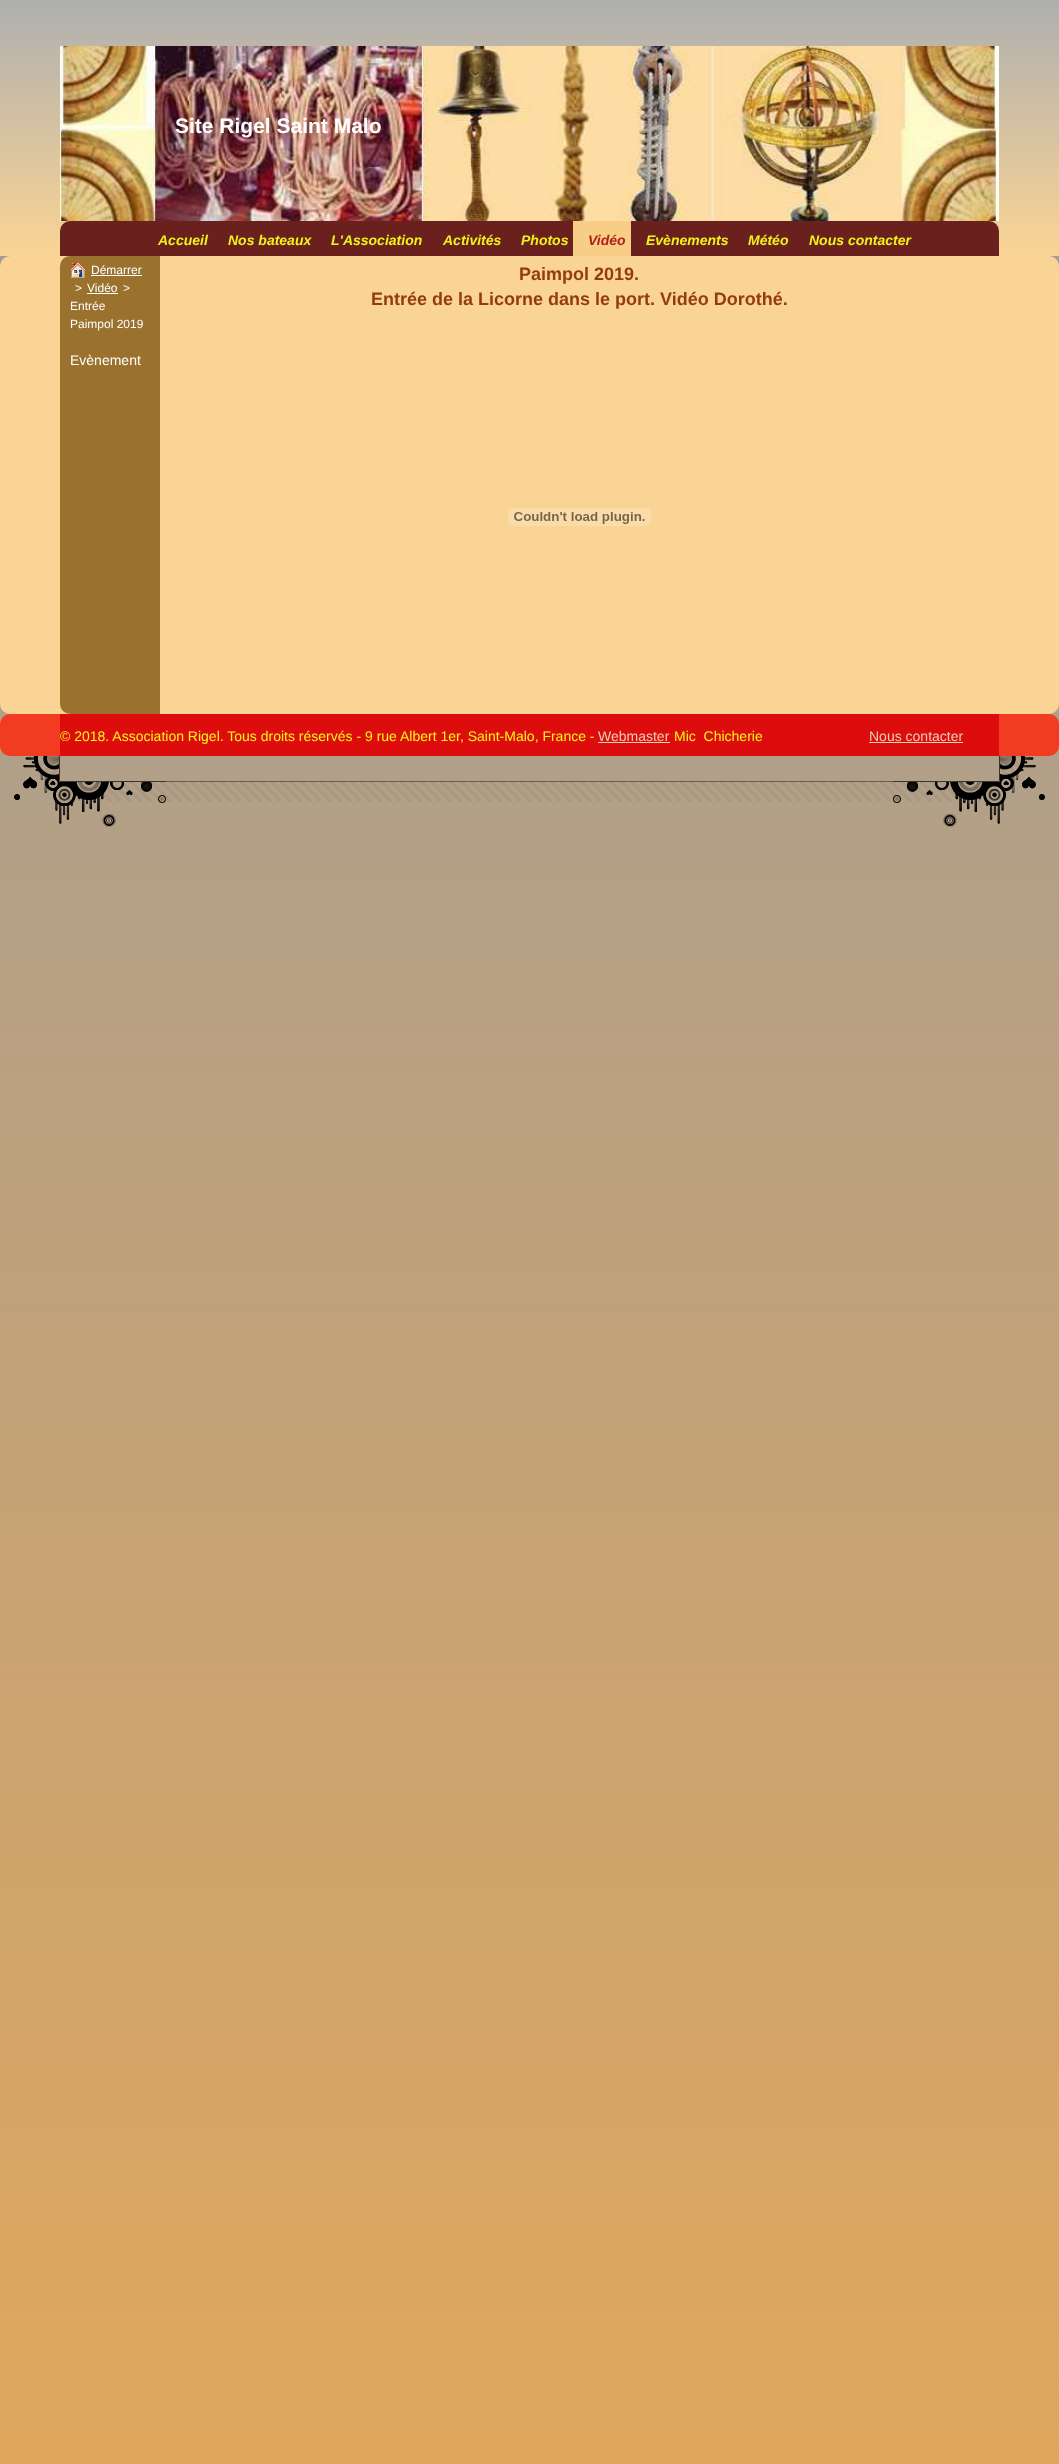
(async () => {
  const canvas = document.querySelector("canvas");
  canvas.width = 1059;
  canvas.height = 2464;
  const ctx = canvas.getContext("2d");
  ctx.miterLimit = 4;
  ctx.fontKerning = "normal";
  async function loadImage(src) {
    const img = new Image();
    img.src = src;
    await img.decode();
    return img;
  }
  let gradient;

  ctx.fillStyle = "#ffffff";
  ctx.fillRect(0, 0, 1059, 2464);
  gradient = ctx.createLinearGradient(529, 0, 530, 2464);
  gradient.addColorStop(0, "#9c9c9c");
  gradient.addColorStop(1, "#e0a75c");
  ctx.fillStyle = gradient;
  ctx.fillRect(0, 256, 1059, 2208);
  gradient = ctx.createLinearGradient(530, 0, 530, 256);
  gradient.addColorStop(0, "#afafaf");
  gradient.addColorStop(1, "#fad494");
  ctx.fillStyle = gradient;
  ctx.fillRect(0, 0, 1059, 256);
  ctx.drawImage(await loadImage("img/1.png"), 60, 46, 939, 175);
  ctx.fillStyle = "#6a201d";
  ctx.beginPath();
  ctx.roundRect(60, 221, 939, 35, [10, 10, 0, 0]);
  ctx.fill();
  ctx.fillStyle = "#f8ce87";
  ctx.fillRect(573, 221, 58, 35);
  ctx.fillStyle = "#fad494";
  ctx.beginPath();
  ctx.roundRect(0, 256, 1059, 458, 10);
  ctx.fill();
  ctx.fillStyle = "#9a712d";
  ctx.beginPath();
  ctx.roundRect(60, 256, 100, 458, [10, 0, 0, 10]);
  ctx.fill();
  ctx.drawImage(await loadImage("img/2.png"), 70, 262, 16, 16);
  ctx.fillStyle = "#ffffff";
  ctx.fillRect(91, 275, 51, 1);
  ctx.fillRect(87, 293, 31, 1);
  ctx.drawImage(await loadImage("img/3.png"), 508, 508, 143, 18);
  ctx.fillStyle = "#f23c21";
  ctx.beginPath();
  ctx.roundRect(0, 714, 1059, 42, 10);
  ctx.fill();
  for (const [x, y, w, h, color] of [
    [60, 714, 939, 42, "#de0d0d"],
    [598, 742, 72, 1, "#e9d2b4"],
    [869, 742, 94, 1, "#e9d2b4"],
  ]) {
    ctx.fillStyle = color;
    ctx.fillRect(x, y, w, h);
  }
  ctx.drawImage(await loadImage("img/4.png"), 39, 756, 21, 25);
  ctx.drawImage(await loadImage("img/5.png"), 22, 756, 38, 25);
  ctx.drawImage(await loadImage("img/6.png"), 999, 756, 21, 25);
  ctx.drawImage(await loadImage("img/7.png"), 999, 756, 38, 25);
  ctx.drawImage(await loadImage("img/8.png"), 14, 781, 46, 43);
  ctx.drawImage(await loadImage("img/9.png"), 60, 781, 939, 21);
  ctx.drawImage(await loadImage("img/10.png"), 60, 781, 106, 46);
  ctx.drawImage(await loadImage("img/11.png"), 893, 781, 106, 46);
  ctx.drawImage(await loadImage("img/12.png"), 999, 781, 46, 43);
  ctx.font = "bold 21px Liberation Sans";
  ctx.fillStyle = "#ffffff";
  ctx.fillText("Site Rigel Saint Malo", 175, 133);
  ctx.font = "italic bold 14px Liberation Sans";
  ctx.fillStyle = "#f0f21c";
  for (const [text, x, y] of [
    ["Accueil", 158, 245],
    ["Nos bateaux", 228, 245],
    ["L'Association", 331, 245],
    ["Activités", 443, 245],
    ["Photos", 521, 245],
  ]) {
    ctx.fillText(text, x, y);
  }
  ctx.fillStyle = "#b21e19";
  ctx.fillText("Vidéo", 588, 245);
  ctx.fillStyle = "#f0f21c";
  for (const [text, x, y] of [
    ["Evènements", 646, 245],
    ["Météo", 748, 245],
    ["Nous contacter", 809, 245],
  ]) {
    ctx.fillText(text, x, y);
  }
  ctx.font = "12px Liberation Sans";
  ctx.fillStyle = "#ffffff";
  for (const [text, x, y] of [
    ["Démarrer", 91, 274],
    [">", 75, 292],
    ["Vidéo", 87, 292],
    [">", 123, 292],
    ["Entrée", 70, 310],
    ["Paimpol 2019", 70, 328],
  ]) {
    ctx.fillText(text, x, y);
  }
  ctx.font = "14px Liberation Sans";
  ctx.fillText("Evènement", 70, 365);
  ctx.font = "bold 18px Liberation Sans";
  ctx.fillStyle = "#953b0e";
  ctx.fillText("Paimpol 2019.", 519, 280);
  ctx.fillText("Entrée de la Licorne dans le port. Vidéo Dorothé.", 371, 305);
  ctx.font = "14px Liberation Sans";
  ctx.fillStyle = "#faf714";
  ctx.fillText("© 2018. Association Rigel. Tous droits réservés - 9 rue Albert 1er, Saint-Malo, France -", 60, 741);
  ctx.fillStyle = "#e9d2b4";
  ctx.fillText("Webmaster", 598, 741);
  ctx.fillStyle = "#faf714";
  ctx.fillText("Mic  Chicherie", 674, 741);
  ctx.fillStyle = "#e9d2b4";
  ctx.fillText("Nous contacter", 869, 741);
})();
